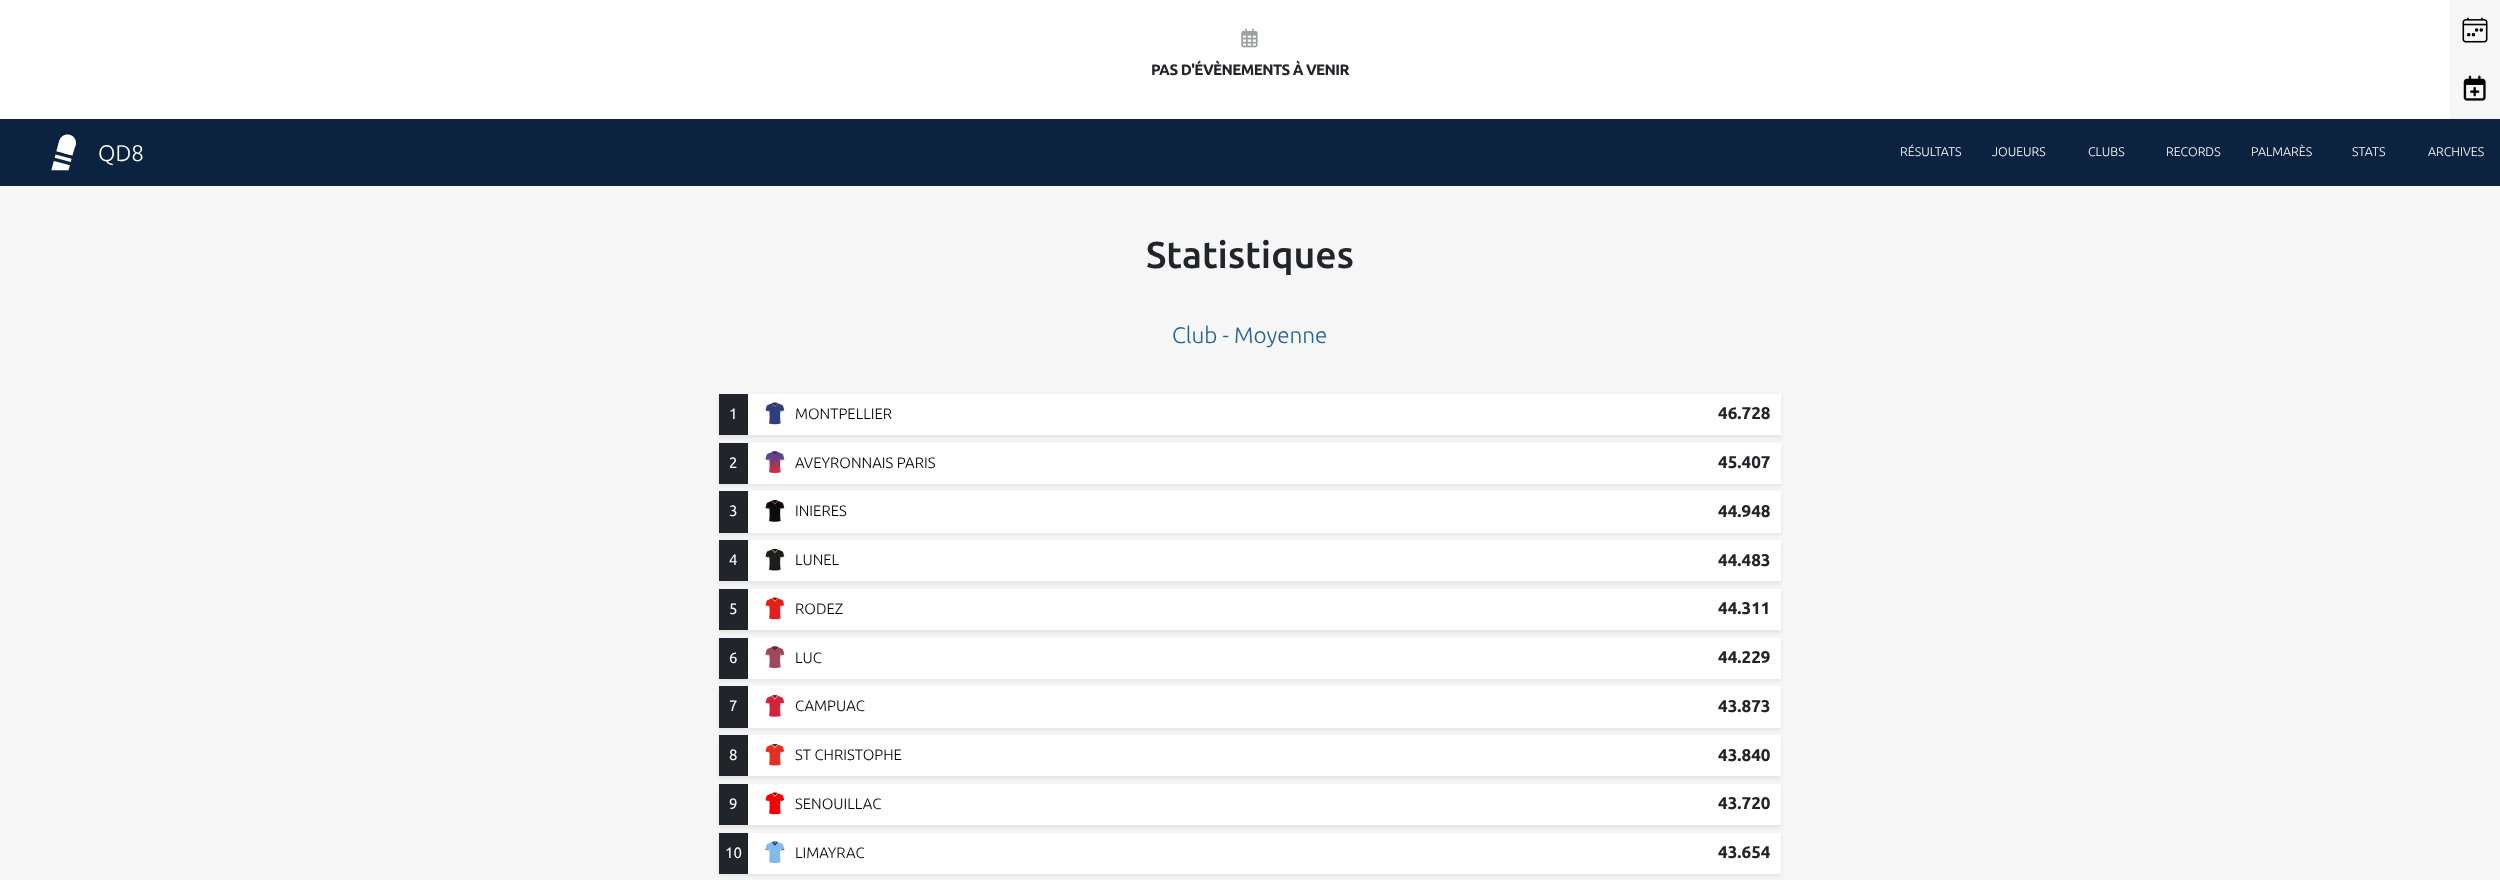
(async () => {
  const canvas = document.querySelector("canvas");
  canvas.width = 2500;
  canvas.height = 880;
  const ctx = canvas.getContext("2d");
  ctx.miterLimit = 4;
  ctx.fontKerning = "normal";
  async function loadImage(src) {
    const img = new Image();
    img.src = src;
    await img.decode();
    return img;
  }

  ctx.fillStyle = "#f6f6f6";
  ctx.fillRect(0, 0, 2500, 880);
  ctx.fillStyle = "#ffffff";
  ctx.fillRect(0, 0, 2450, 119);
  ctx.drawImage(await loadImage("img/1.png"), 1241, 28, 17, 20);
  ctx.drawImage(await loadImage("img/2.png"), 2462, 17, 26, 26);
  ctx.drawImage(await loadImage("img/3.png"), 2463, 75, 23, 26);
  ctx.fillStyle = "#0c2340";
  ctx.fillRect(0, 119, 2500, 67);
  ctx.drawImage(await loadImage("img/4.png"), 51, 134, 25, 37);
  ctx.fillStyle = "rgba(0, 0, 0, 0.07)";
  ctx.filter = "blur(2px)";
  ctx.beginPath();
  ctx.rect(719, 396, 1062, 42);
  ctx.fill();
  ctx.filter = "none";
  ctx.fillStyle = "#ffffff";
  ctx.fillRect(748, 394, 1033, 41);
  ctx.fillStyle = "#212529";
  ctx.fillRect(719, 394, 29, 41);
  ctx.drawImage(await loadImage("img/5.png"), 765, 402, 20, 23);
  ctx.fillStyle = "rgba(0, 0, 0, 0.07)";
  ctx.filter = "blur(2px)";
  ctx.beginPath();
  ctx.rect(719, 445, 1062, 41);
  ctx.fill();
  ctx.filter = "none";
  ctx.fillStyle = "#ffffff";
  ctx.fillRect(748, 443, 1033, 41);
  ctx.fillStyle = "#212529";
  ctx.fillRect(719, 443, 29, 41);
  ctx.drawImage(await loadImage("img/6.png"), 765, 451, 20, 22);
  ctx.fillStyle = "rgba(0, 0, 0, 0.07)";
  ctx.filter = "blur(2px)";
  ctx.beginPath();
  ctx.rect(719, 494, 1062, 41);
  ctx.fill();
  ctx.filter = "none";
  ctx.fillStyle = "#ffffff";
  ctx.fillRect(748, 491, 1033, 42);
  ctx.fillStyle = "#212529";
  ctx.fillRect(719, 491, 29, 42);
  ctx.drawImage(await loadImage("img/7.png"), 765, 500, 20, 22);
  ctx.fillStyle = "rgba(0, 0, 0, 0.07)";
  ctx.filter = "blur(2px)";
  ctx.beginPath();
  ctx.rect(719, 543, 1062, 41);
  ctx.fill();
  ctx.filter = "none";
  ctx.fillStyle = "#ffffff";
  ctx.fillRect(748, 540, 1033, 41);
  ctx.fillStyle = "#212529";
  ctx.fillRect(719, 540, 29, 41);
  ctx.drawImage(await loadImage("img/8.png"), 765, 548, 20, 23);
  ctx.fillStyle = "rgba(0, 0, 0, 0.07)";
  ctx.filter = "blur(2px)";
  ctx.beginPath();
  ctx.rect(719, 591, 1062, 42);
  ctx.fill();
  ctx.filter = "none";
  ctx.fillStyle = "#ffffff";
  ctx.fillRect(748, 589, 1033, 41);
  ctx.fillStyle = "#212529";
  ctx.fillRect(719, 589, 29, 41);
  ctx.drawImage(await loadImage("img/9.png"), 765, 597, 20, 23);
  ctx.fillStyle = "rgba(0, 0, 0, 0.07)";
  ctx.filter = "blur(2px)";
  ctx.beginPath();
  ctx.rect(719, 640, 1062, 41);
  ctx.fill();
  ctx.filter = "none";
  ctx.fillStyle = "#ffffff";
  ctx.fillRect(748, 638, 1033, 41);
  ctx.fillStyle = "#212529";
  ctx.fillRect(719, 638, 29, 41);
  ctx.drawImage(await loadImage("img/10.png"), 765, 646, 20, 22);
  ctx.fillStyle = "rgba(0, 0, 0, 0.07)";
  ctx.filter = "blur(2px)";
  ctx.beginPath();
  ctx.rect(719, 689, 1062, 41);
  ctx.fill();
  ctx.filter = "none";
  ctx.fillStyle = "#ffffff";
  ctx.fillRect(748, 686, 1033, 42);
  ctx.fillStyle = "#212529";
  ctx.fillRect(719, 686, 29, 42);
  ctx.drawImage(await loadImage("img/11.png"), 765, 695, 20, 22);
  ctx.fillStyle = "rgba(0, 0, 0, 0.07)";
  ctx.filter = "blur(2px)";
  ctx.beginPath();
  ctx.rect(719, 738, 1062, 41);
  ctx.fill();
  ctx.filter = "none";
  ctx.fillStyle = "#ffffff";
  ctx.fillRect(748, 735, 1033, 41);
  ctx.fillStyle = "#212529";
  ctx.fillRect(719, 735, 29, 41);
  ctx.drawImage(await loadImage("img/12.png"), 765, 743, 20, 23);
  ctx.fillStyle = "rgba(0, 0, 0, 0.07)";
  ctx.filter = "blur(2px)";
  ctx.beginPath();
  ctx.rect(719, 786, 1062, 42);
  ctx.fill();
  ctx.filter = "none";
  ctx.fillStyle = "#ffffff";
  ctx.fillRect(748, 784, 1033, 41);
  ctx.fillStyle = "#212529";
  ctx.fillRect(719, 784, 29, 41);
  ctx.drawImage(await loadImage("img/13.png"), 765, 792, 20, 23);
  ctx.fillStyle = "rgba(0, 0, 0, 0.07)";
  ctx.filter = "blur(2px)";
  ctx.beginPath();
  ctx.rect(719, 835, 1062, 41);
  ctx.fill();
  ctx.filter = "none";
  ctx.fillStyle = "#ffffff";
  ctx.fillRect(748, 833, 1033, 41);
  ctx.fillStyle = "#212529";
  ctx.fillRect(719, 833, 29, 41);
  ctx.drawImage(await loadImage("img/14.png"), 765, 841, 20, 22);
  ctx.letterSpacing = "-0.6px";
  ctx.font = "bold 15px Ubuntu";
  ctx.fillText("PAS D'ÉVÈNEMENTS À VENIR", 1151, 75);
  ctx.letterSpacing = "0px";
  ctx.font = "300 22.5px Ubuntu";
  ctx.fillStyle = "#ffffff";
  ctx.fillText("QD8", 98, 161);
  ctx.font = "300 12.5px Ubuntu";
  for (const [text, x, y] of [
    ["RÉSULTATS", 1900, 156],
    ["JOUEURS", 1992, 156],
    ["CLUBS", 2088, 156],
    ["RECORDS", 2166, 156],
    ["PALMARÈS", 2251, 156],
    ["STATS", 2352, 156],
    ["ARCHIVES", 2428, 156],
  ]) {
    ctx.fillText(text, x, y);
  }
  ctx.font = "500 37.5px Ubuntu";
  ctx.fillStyle = "#212529";
  ctx.fillText("Statistiques", 1146, 268);
  ctx.font = "300 22.5px Ubuntu";
  ctx.fillStyle = "#236192";
  ctx.fillText("Club - Moyenne", 1172, 343);
  ctx.font = "15px Ubuntu";
  ctx.fillStyle = "#ffffff";
  ctx.fillText("1", 729, 419);
  ctx.font = "300 15px Ubuntu";
  ctx.fillStyle = "#000000";
  ctx.fillText("MONTPELLIER", 795, 419);
  ctx.font = "bold 17px Ubuntu";
  ctx.fillStyle = "#212529";
  ctx.fillText("46.728", 1718, 419);
  ctx.font = "15px Ubuntu";
  ctx.fillStyle = "#ffffff";
  ctx.fillText("2", 729, 468);
  ctx.font = "300 15px Ubuntu";
  ctx.fillStyle = "#000000";
  ctx.fillText("AVEYRONNAIS PARIS", 795, 468);
  ctx.font = "bold 17px Ubuntu";
  ctx.fillStyle = "#212529";
  ctx.fillText("45.407", 1718, 468);
  ctx.font = "15px Ubuntu";
  ctx.fillStyle = "#ffffff";
  ctx.fillText("3", 729, 516);
  ctx.font = "300 15px Ubuntu";
  ctx.fillStyle = "#000000";
  ctx.fillText("INIERES", 795, 516);
  ctx.font = "bold 17px Ubuntu";
  ctx.fillStyle = "#212529";
  ctx.fillText("44.948", 1718, 517);
  ctx.font = "15px Ubuntu";
  ctx.fillStyle = "#ffffff";
  ctx.fillText("4", 729, 565);
  ctx.font = "300 15px Ubuntu";
  ctx.fillStyle = "#000000";
  ctx.fillText("LUNEL", 795, 565);
  ctx.font = "bold 17px Ubuntu";
  ctx.fillStyle = "#212529";
  ctx.fillText("44.483", 1718, 566);
  ctx.font = "15px Ubuntu";
  ctx.fillStyle = "#ffffff";
  ctx.fillText("5", 729, 614);
  ctx.font = "300 15px Ubuntu";
  ctx.fillStyle = "#000000";
  ctx.fillText("RODEZ", 795, 614);
  ctx.font = "bold 17px Ubuntu";
  ctx.fillStyle = "#212529";
  ctx.fillText("44.311", 1718, 614);
  ctx.font = "15px Ubuntu";
  ctx.fillStyle = "#ffffff";
  ctx.fillText("6", 729, 663);
  ctx.font = "300 15px Ubuntu";
  ctx.fillStyle = "#000000";
  ctx.fillText("LUC", 795, 663);
  ctx.font = "bold 17px Ubuntu";
  ctx.fillStyle = "#212529";
  ctx.fillText("44.229", 1718, 663);
  ctx.font = "15px Ubuntu";
  ctx.fillStyle = "#ffffff";
  ctx.fillText("7", 729, 711);
  ctx.font = "300 15px Ubuntu";
  ctx.fillStyle = "#000000";
  ctx.fillText("CAMPUAC", 795, 711);
  ctx.font = "bold 17px Ubuntu";
  ctx.fillStyle = "#212529";
  ctx.fillText("43.873", 1718, 712);
  ctx.font = "15px Ubuntu";
  ctx.fillStyle = "#ffffff";
  ctx.fillText("8", 729, 760);
  ctx.font = "300 15px Ubuntu";
  ctx.fillStyle = "#000000";
  ctx.fillText("ST CHRISTOPHE", 795, 760);
  ctx.font = "bold 17px Ubuntu";
  ctx.fillStyle = "#212529";
  ctx.fillText("43.840", 1718, 761);
  ctx.font = "15px Ubuntu";
  ctx.fillStyle = "#ffffff";
  ctx.fillText("9", 729, 809);
  ctx.font = "300 15px Ubuntu";
  ctx.fillStyle = "#000000";
  ctx.fillText("SENOUILLAC", 795, 809);
  ctx.font = "bold 17px Ubuntu";
  ctx.fillStyle = "#212529";
  ctx.fillText("43.720", 1718, 809);
  ctx.font = "15px Ubuntu";
  ctx.fillStyle = "#ffffff";
  ctx.fillText("10", 725, 858);
  ctx.font = "300 15px Ubuntu";
  ctx.fillStyle = "#000000";
  ctx.fillText("LIMAYRAC", 795, 858);
  ctx.font = "bold 17px Ubuntu";
  ctx.fillStyle = "#212529";
  ctx.fillText("43.654", 1718, 858);
})();
